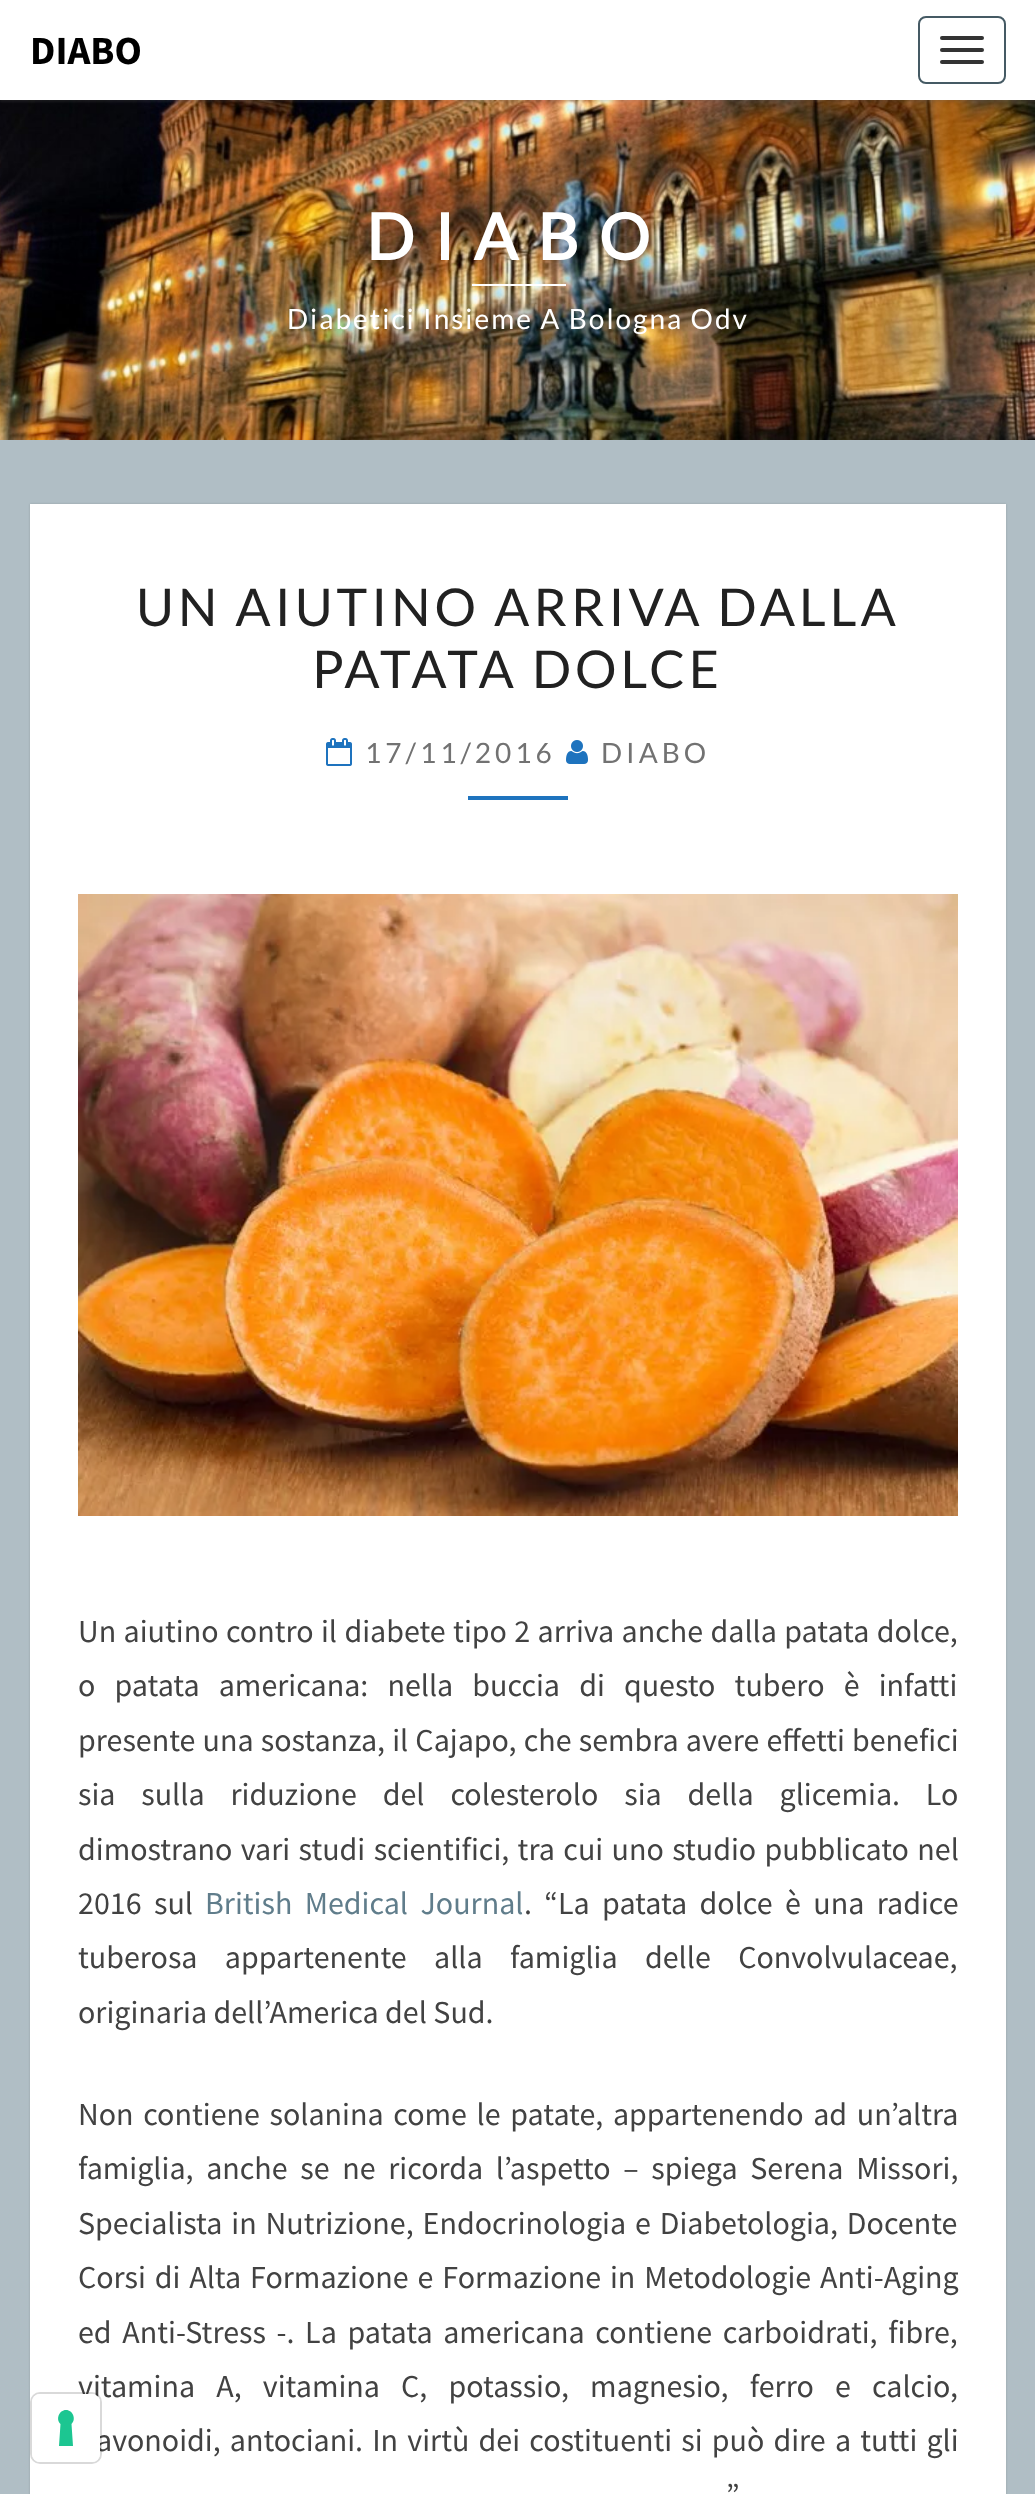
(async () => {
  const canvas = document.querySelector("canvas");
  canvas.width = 1035;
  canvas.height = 2494;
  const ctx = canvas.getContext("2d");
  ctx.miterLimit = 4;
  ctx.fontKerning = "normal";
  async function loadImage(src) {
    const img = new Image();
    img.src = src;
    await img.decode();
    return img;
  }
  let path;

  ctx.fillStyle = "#b0bec5";
  ctx.fillRect(0, 0, 1035, 2494);
  ctx.drawImage(await loadImage("img/1.png"), 0, 100, 1035, 340);
  ctx.fillStyle = "rgba(100, 100, 100, 0.2)";
  ctx.filter = "blur(1px)";
  ctx.beginPath();
  ctx.rect(0, 2, 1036, 100);
  ctx.fill();
  ctx.filter = "none";
  ctx.fillStyle = "#ffffff";
  ctx.fillRect(0, 0, 1035, 100);
  ctx.beginPath();
  ctx.roundRect(919, 17, 86, 66, 7);
  ctx.strokeStyle = "#455a64";
  ctx.lineWidth = 2;
  ctx.stroke();
  ctx.fillStyle = "#333333";
  ctx.beginPath();
  ctx.roundRect(940, 36, 44, 4, 2);
  ctx.fill();
  ctx.beginPath();
  ctx.roundRect(940, 48, 44, 4, 2);
  ctx.fill();
  ctx.beginPath();
  ctx.roundRect(940, 60, 44, 4, 2);
  ctx.fill();
  ctx.fillStyle = "#ffffff";
  ctx.fillRect(472, 284, 94, 2);
  ctx.fillStyle = "rgba(0, 0, 0, 0.15)";
  ctx.filter = "blur(1px)";
  ctx.beginPath();
  ctx.rect(30, 504, 976, 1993);
  ctx.fill();
  ctx.filter = "none";
  ctx.fillStyle = "#ffffff";
  ctx.fillRect(30, 504, 976, 1990);
  ctx.drawImage(await loadImage("img/2.png"), 326, 738, 26, 28);
  ctx.drawImage(await loadImage("img/3.png"), 566, 740, 22, 24);
  ctx.fillStyle = "#1e73be";
  ctx.fillRect(468, 796, 100, 4);
  ctx.drawImage(await loadImage("img/4.png"), 78, 894, 880, 622);
  ctx.font = "bold 40px Source Sans Pro";
  ctx.fillStyle = "#000000";
  ctx.fillText("DIABO", 30, 64);
  ctx.letterSpacing = "20px";
  ctx.font = "bold 64px Lato";
  ctx.fillStyle = "#ffffff";
  ctx.fillText("DIABO", 366, 260);
  ctx.letterSpacing = "2px";
  ctx.font = "28px Lato";
  ctx.fillText("Diabetici Insieme A Bologna Odv", 287, 329);
  ctx.letterSpacing = "4px";
  ctx.font = "52px Lato";
  ctx.fillStyle = "#212121";
  ctx.fillText("UN AIUTINO ARRIVA DALLA", 136, 626);
  ctx.fillText("PATATA DOLCE", 312, 688);
  ctx.font = "28px Lato";
  ctx.fillStyle = "#727272";
  ctx.fillText("17/11/2016", 365, 763);
  ctx.fillText("DIABO", 601, 763);
  ctx.letterSpacing = "0px";
  ctx.wordSpacing = "1px";
  ctx.font = "32px Source Sans Pro";
  ctx.fillStyle = "#424242";
  ctx.fillText("Un aiutino contro il diabete tipo 2 arriva anche dalla patata dolce,", 78, 1642);
  ctx.wordSpacing = "12.75px";
  ctx.fillText("o patata americana: nella buccia di questo tubero è infatti", 78, 1696);
  ctx.wordSpacing = "0.75px";
  ctx.fillText("presente una sostanza, il Cajapo, che sembra avere effetti benefici", 78, 1751);
  ctx.wordSpacing = "19.5px";
  ctx.fillText("sia sulla riduzione del colesterolo sia della glicemia. Lo", 78, 1805);
  ctx.wordSpacing = "2px";
  ctx.fillText("dimostrano vari studi scientifici, tra cui uno studio pubblicato nel", 78, 1860);
  ctx.wordSpacing = "6px";
  ctx.fillText("2016 sul", 78, 1914);
  ctx.fillStyle = "#607d8b";
  ctx.fillText("British Medical Journal", 205, 1914);
  ctx.fillStyle = "#424242";
  ctx.fillText(". “La patata dolce è una radice", 524, 1914);
  ctx.wordSpacing = "21px";
  ctx.fillText("tuberosa appartenente alla famiglia delle Convolvulaceae,", 78, 1968);
  ctx.wordSpacing = "0px";
  ctx.fillText("originaria dell’America del Sud.", 78, 2023);
  ctx.wordSpacing = "3.25px";
  ctx.fillText("Non contiene solanina come le patate, appartenendo ad un’altra", 78, 2125);
  ctx.wordSpacing = "6.25px";
  ctx.fillText("famiglia, anche se ne ricorda l’aspetto – spiega Serena Missori,", 78, 2179);
  ctx.wordSpacing = "2.5px";
  ctx.fillText("Specialista in Nutrizione, Endocrinologia e Diabetologia, Docente", 78, 2234);
  ctx.fillText("Corsi di Alta Formazione e Formazione in Metodologie Anti-Aging", 78, 2288);
  ctx.wordSpacing = "4.25px";
  ctx.fillText("ed Anti-Stress -. La patata americana contiene carboidrati, fibre,", 78, 2343);
  ctx.wordSpacing = "14.75px";
  ctx.fillText("vitamina A, vitamina C, potassio, magnesio, ferro e calcio,", 78, 2397);
  ctx.wordSpacing = "2.75px";
  ctx.fillText("avonoidi, antociani. In virtù dei costituenti si può dire a tutti gli", 96, 2451);
  ctx.wordSpacing = "5px";
  ctx.fillText("”", 726, 2506);
  ctx.beginPath();
  ctx.roundRect(31, 2393, 70, 70, 9);
  ctx.strokeStyle = "rgba(0, 0, 0, 0.15)";
  ctx.stroke();
  ctx.fillStyle = "#ffffff";
  ctx.beginPath();
  ctx.roundRect(32, 2394, 68, 68, 8);
  ctx.fill();
  ctx.fillStyle = "#1cc691";
  path = new Path2D("M66 2410C73 2410 76.5 2419.5 71.5 2424L73 2446H59L60.5 2424C55.5 2419.5 59 2410 66 2410Z");
  ctx.fill(path, "evenodd");
})();
